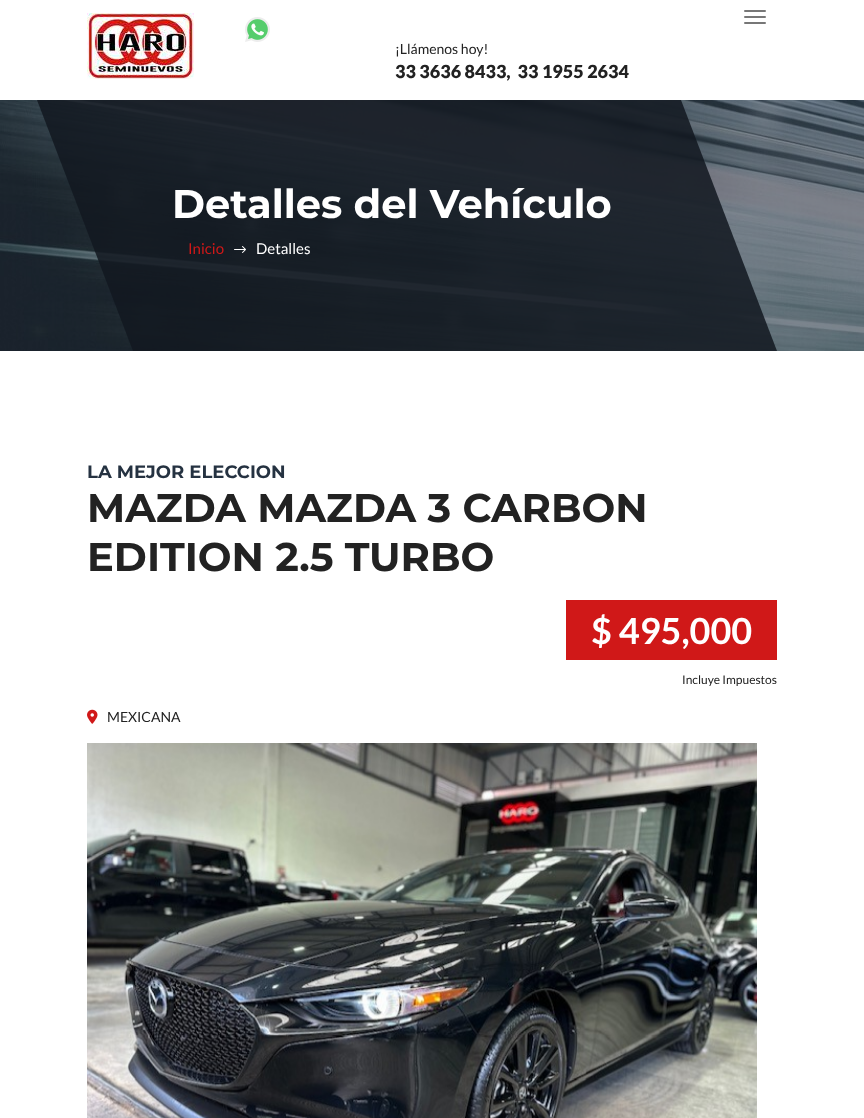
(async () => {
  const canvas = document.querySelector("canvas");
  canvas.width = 864;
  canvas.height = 1118;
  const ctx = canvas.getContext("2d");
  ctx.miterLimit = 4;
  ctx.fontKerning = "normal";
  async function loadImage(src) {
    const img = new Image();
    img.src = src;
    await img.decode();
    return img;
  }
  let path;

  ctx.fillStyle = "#ffffff";
  ctx.fillRect(0, 0, 864, 1118);
  ctx.drawImage(await loadImage("img/1.png"), 87, 13, 107, 66);
  ctx.fillStyle = "#777777";
  ctx.beginPath();
  ctx.roundRect(744, 10, 11, 2, [1, 0, 0, 1]);
  ctx.fill();
  ctx.beginPath();
  ctx.roundRect(755, 10, 11, 2, [0, 1, 1, 0]);
  ctx.fill();
  ctx.beginPath();
  ctx.roundRect(744, 16, 11, 2, [1, 0, 0, 1]);
  ctx.fill();
  ctx.beginPath();
  ctx.roundRect(755, 16, 11, 2, [0, 1, 1, 0]);
  ctx.fill();
  ctx.beginPath();
  ctx.roundRect(744, 22, 11, 2, [1, 0, 0, 1]);
  ctx.fill();
  ctx.beginPath();
  ctx.roundRect(755, 22, 11, 2, [0, 1, 1, 0]);
  ctx.fill();
  ctx.drawImage(await loadImage("img/2.png"), 245, 17, 25, 25);
  ctx.drawImage(await loadImage("img/3.png"), 0, 100, 864, 251);
  ctx.fillStyle = "rgba(18, 24, 32, 0.85)";
  path = new Path2D("M37 100L133 351H777L681 100Z");
  ctx.fill(path);
  ctx.drawImage(await loadImage("img/4.png"), 234, 246, 12, 7);
  ctx.fillStyle = "#d01818";
  ctx.fillRect(566, 600, 211, 60);
  ctx.drawImage(await loadImage("img/5.png"), 87, 709, 11, 15);
  ctx.drawImage(await loadImage("img/6.png"), 87, 743, 670, 375);
  ctx.font = "14px Lato";
  ctx.fillStyle = "#222222";
  ctx.fillText("¡Llámenos hoy!", 395, 54);
  ctx.font = "900 18px Lato";
  ctx.fillText("33 3636 8433,  33 1955 2634", 395, 78);
  ctx.font = "bold 40px Montserrat";
  ctx.fillStyle = "#ffffff";
  ctx.fillText("Detalles del Vehículo", 172, 218);
  ctx.font = "15px Lato";
  ctx.fillStyle = "#d01818";
  ctx.fillText("Inicio", 188, 254);
  ctx.fillStyle = "#ffffff";
  ctx.fillText("Detalles", 256, 254);
  ctx.font = "bold 18px Montserrat";
  ctx.fillStyle = "#253241";
  ctx.fillText("LA MEJOR ELECCION", 87, 478);
  ctx.font = "bold 40px Montserrat";
  ctx.fillStyle = "#222222";
  ctx.fillText("MAZDA MAZDA 3 CARBON", 87, 522);
  ctx.fillText("EDITION 2.5 TURBO", 87, 571);
  ctx.font = "bold 36px Lato";
  ctx.fillStyle = "#ffffff";
  ctx.fillText("$ 495,000", 591, 644);
  ctx.font = "12px Lato";
  ctx.fillStyle = "#222222";
  ctx.fillText("Incluye Impuestos", 682, 684);
  ctx.font = "14px Lato";
  ctx.fillText("MEXICANA", 107, 722);
})();
